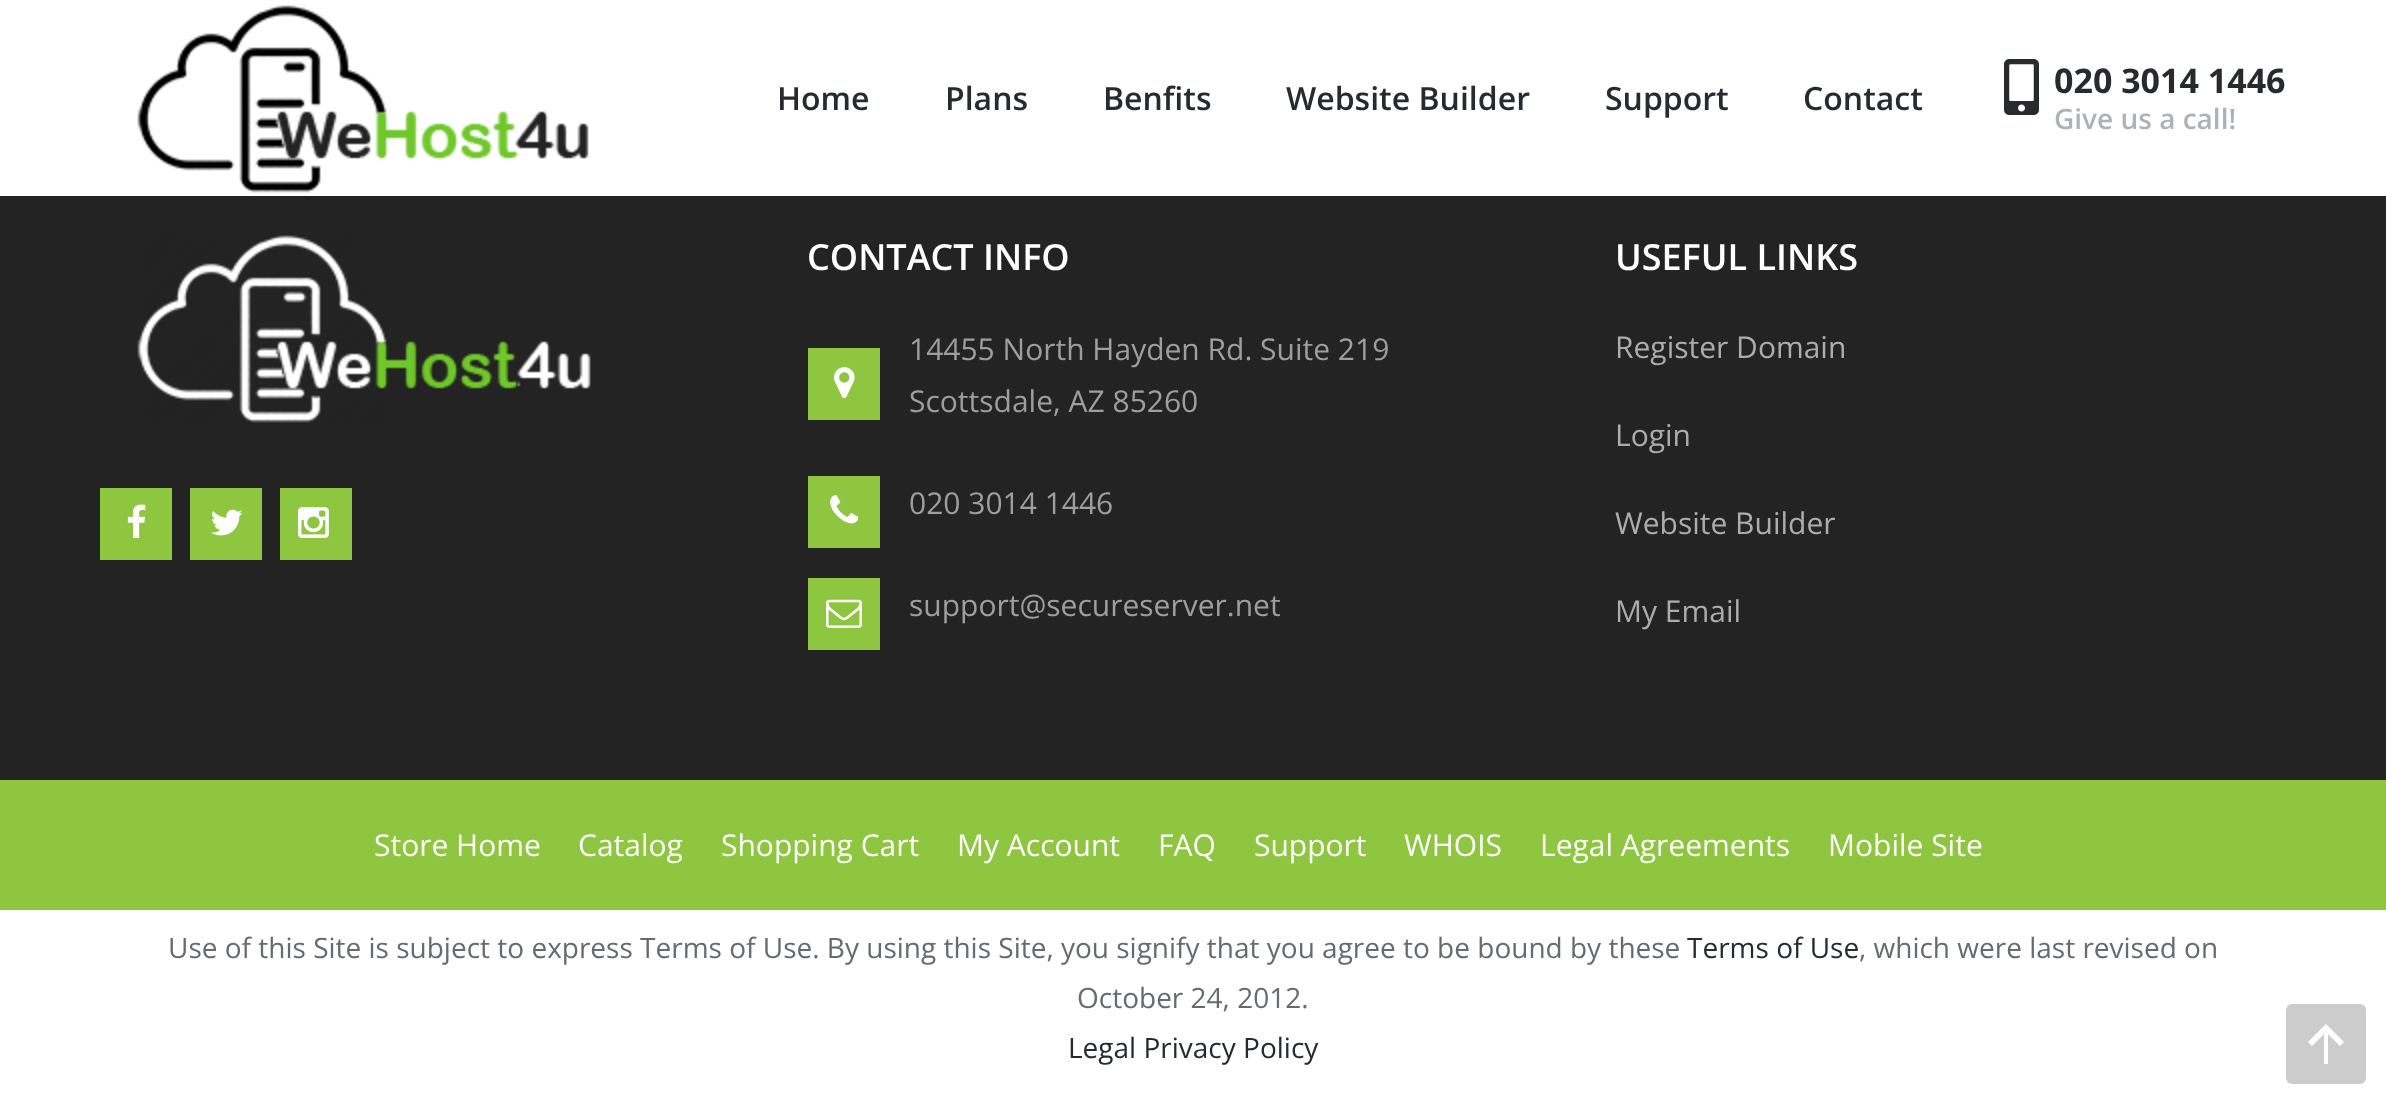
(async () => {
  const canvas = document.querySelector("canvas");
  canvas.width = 2386;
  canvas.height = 1104;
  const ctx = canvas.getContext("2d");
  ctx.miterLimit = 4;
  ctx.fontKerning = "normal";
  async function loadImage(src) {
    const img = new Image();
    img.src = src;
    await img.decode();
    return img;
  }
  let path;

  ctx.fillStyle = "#ffffff";
  ctx.fillRect(0, 0, 2386, 1104);
  ctx.drawImage(await loadImage("img/1.png"), 137, 5, 452, 188);
  ctx.drawImage(await loadImage("img/2.png"), 2004, 59, 35, 56);
  ctx.fillStyle = "#232323";
  ctx.fillRect(0, 196, 2386, 584);
  ctx.drawImage(await loadImage("img/3.png"), 137, 235, 454, 188);
  ctx.fillStyle = "#8ec63f";
  ctx.fillRect(100, 488, 72, 72);
  ctx.drawImage(await loadImage("img/4.png"), 127, 504, 19, 34);
  ctx.fillRect(190, 488, 72, 72);
  ctx.drawImage(await loadImage("img/5.png"), 211, 509, 32, 27);
  ctx.fillRect(280, 488, 72, 72);
  ctx.drawImage(await loadImage("img/6.png"), 298, 507, 31, 31);
  ctx.fillRect(808, 348, 72, 72);
  ctx.drawImage(await loadImage("img/7.png"), 834, 367, 21, 31);
  ctx.fillRect(808, 476, 72, 72);
  ctx.drawImage(await loadImage("img/8.png"), 830, 495, 29, 29);
  ctx.fillRect(808, 578, 72, 72);
  ctx.drawImage(await loadImage("img/9.png"), 826, 599, 36, 29);
  ctx.fillRect(0, 780, 2386, 130);
  ctx.fillStyle = "#cccccc";
  ctx.beginPath();
  ctx.roundRect(2286, 1004, 80, 80, 6);
  ctx.fill();
  ctx.fillStyle = "#ffffff";
  path = new Path2D("M2308 1042L2312 1046L2324 1034V1064H2328V1034L2340 1046L2344 1042L2326 1024Z");
  ctx.fill(path);
  ctx.font = "600 32px Open Sans";
  ctx.fillStyle = "#262b2e";
  for (const [text, x, y] of [
    ["Home", 777, 110],
    ["Plans", 945, 110],
    ["Benfits", 1103, 110],
    ["Website Builder", 1286, 110],
    ["Support", 1605, 110],
    ["Contact", 1803, 110],
  ]) {
    ctx.fillText(text, x, y);
  }
  ctx.font = "bold 34px Open Sans";
  ctx.fillText("020 3014 1446", 2054, 93);
  ctx.font = "600 28px Open Sans";
  ctx.fillStyle = "#aeb2b5";
  ctx.fillText("Give us a call!", 2054, 129);
  ctx.font = "600 36px Open Sans";
  ctx.fillStyle = "#ffffff";
  ctx.fillText("CONTACT INFO", 807, 270);
  ctx.font = "30px Open Sans";
  ctx.fillStyle = "#9e9e9e";
  for (const [text, x, y] of [
    ["14455 North Hayden Rd. Suite 219", 909, 360],
    ["Scottsdale, AZ 85260", 909, 412],
    ["020 3014 1446", 909, 514],
    ["support@secureserver.net", 909, 616],
  ]) {
    ctx.fillText(text, x, y);
  }
  ctx.font = "600 36px Open Sans";
  ctx.fillStyle = "#ffffff";
  ctx.fillText("USEFUL LINKS", 1615, 270);
  ctx.font = "30px Open Sans";
  ctx.fillStyle = "#acacac";
  for (const [text, x, y] of [
    ["Register Domain", 1615, 358],
    ["Login", 1615, 446],
    ["Website Builder", 1615, 534],
    ["My Email", 1615, 622],
  ]) {
    ctx.fillText(text, x, y);
  }
  ctx.fillStyle = "#ffffff";
  for (const [text, x, y] of [
    ["Store Home", 374, 856],
    ["Catalog", 578, 856],
    ["Shopping Cart", 721, 856],
    ["My Account", 957, 856],
    ["FAQ", 1158, 856],
    ["Support", 1254, 856],
    ["WHOIS", 1404, 856],
    ["Legal Agreements", 1540, 856],
    ["Mobile Site", 1828, 856],
  ]) {
    ctx.fillText(text, x, y);
  }
  ctx.font = "28px Open Sans";
  ctx.fillStyle = "#676b6d";
  ctx.fillText("Use of this Site is subject to express Terms of Use. By using this Site, you signify that you agree to be bound by these", 168, 958);
  ctx.fillStyle = "#262b2e";
  ctx.fillText("Terms of Use", 1687, 958);
  ctx.fillStyle = "#676b6d";
  ctx.fillText(", which were last revised on", 1859, 958);
  ctx.fillText("October 24, 2012.", 1077, 1008);
  ctx.fillStyle = "#262b2e";
  ctx.fillText("Legal Privacy Policy", 1068, 1058);
})();
